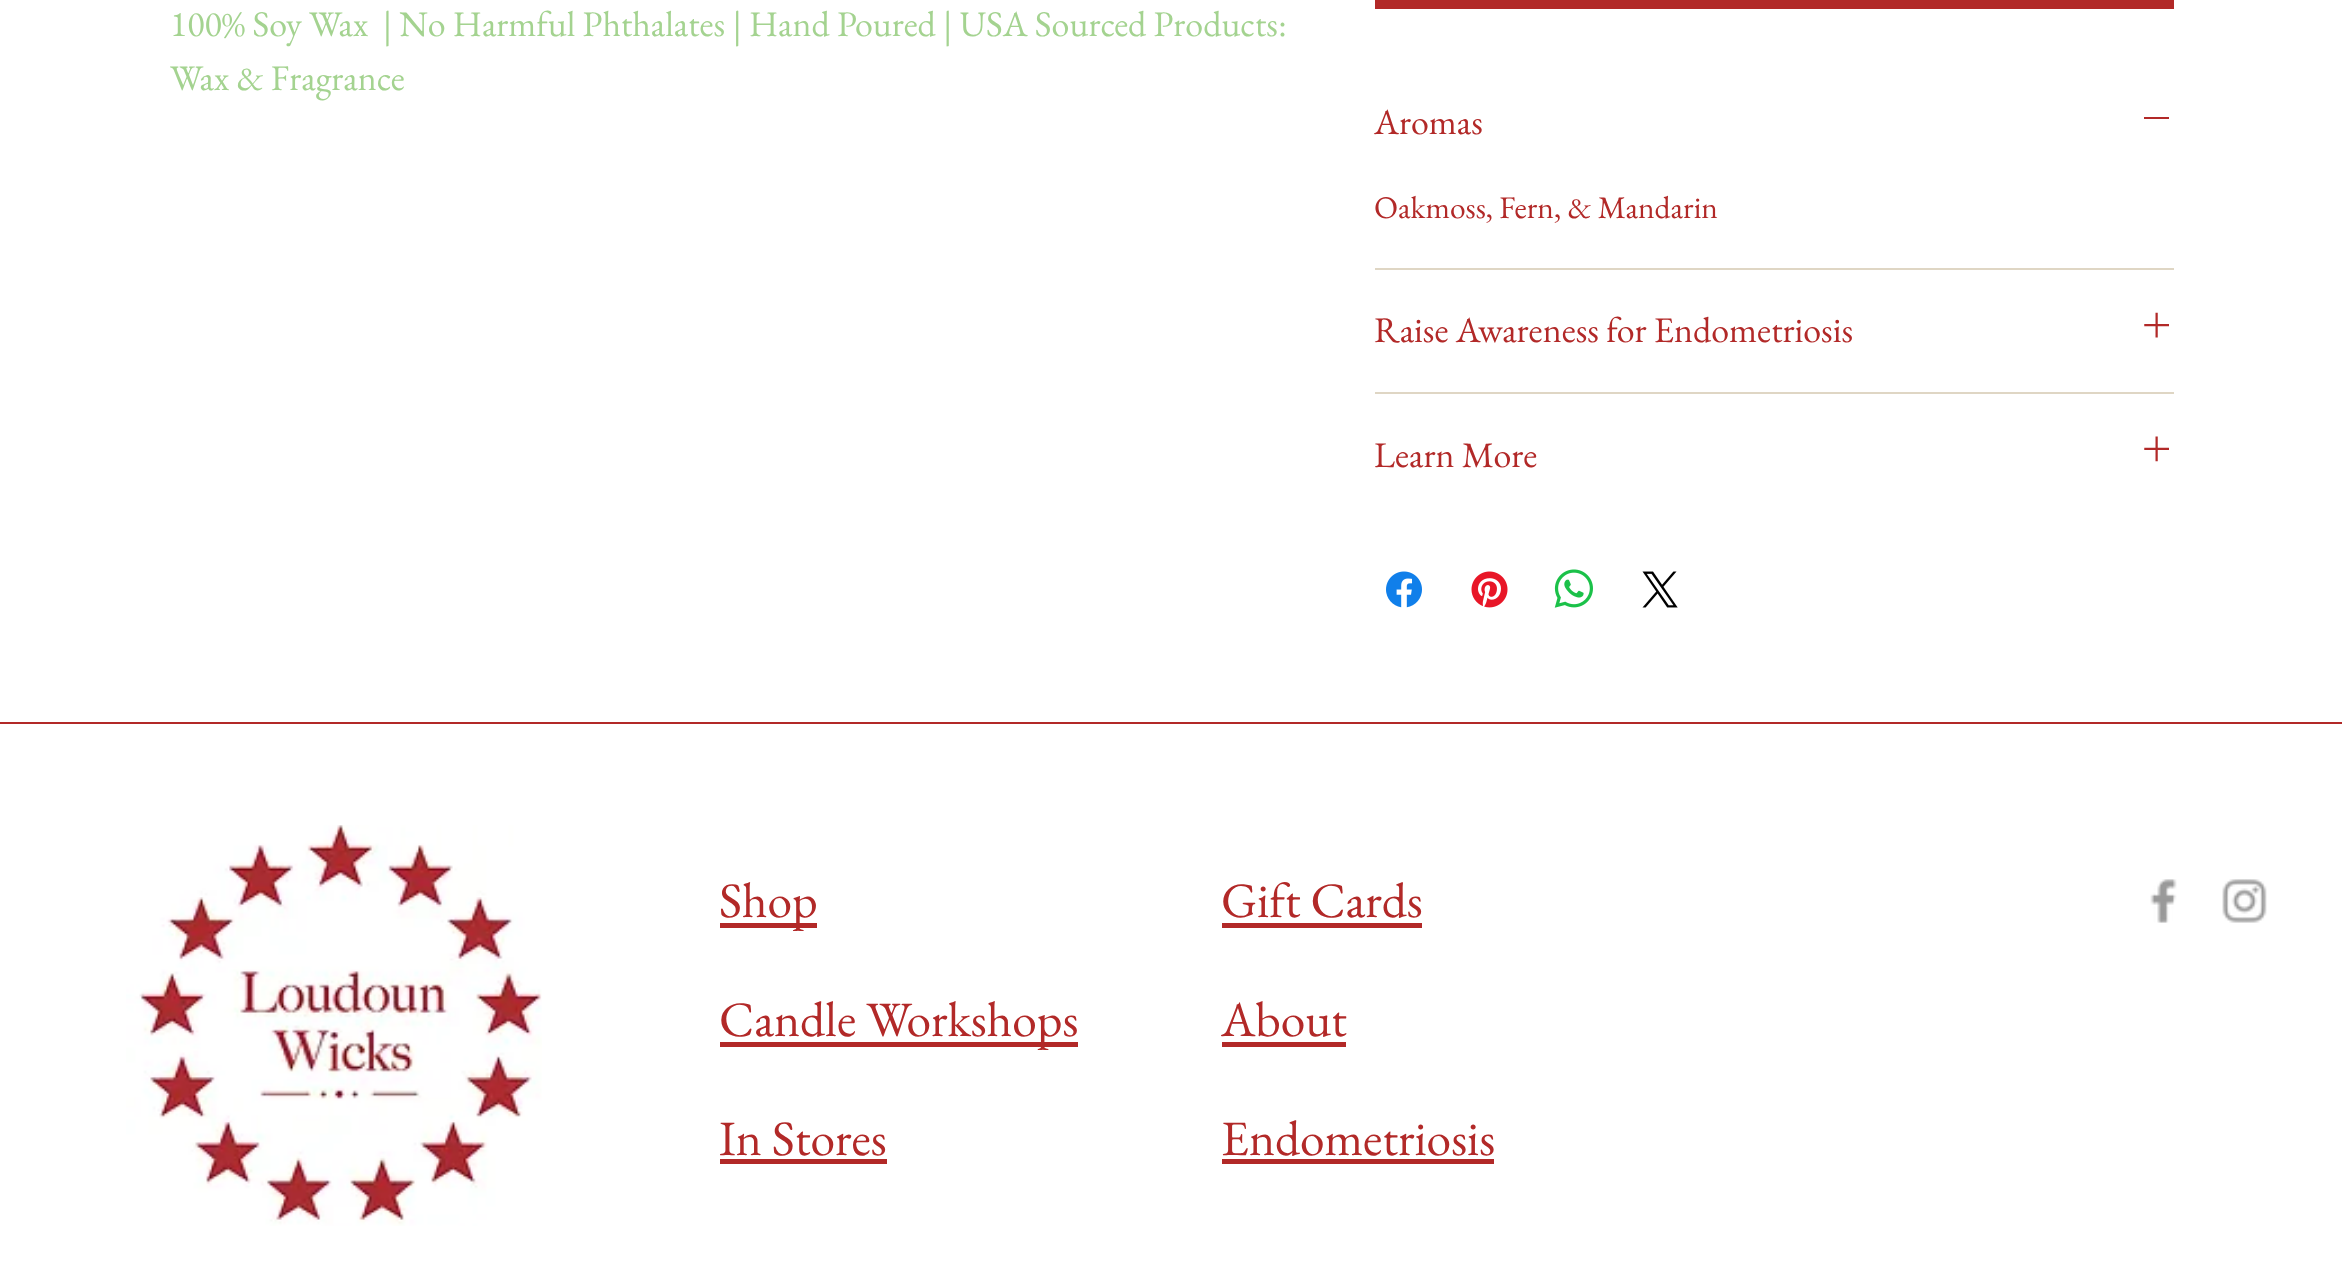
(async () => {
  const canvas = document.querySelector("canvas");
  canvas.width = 2342;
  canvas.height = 1262;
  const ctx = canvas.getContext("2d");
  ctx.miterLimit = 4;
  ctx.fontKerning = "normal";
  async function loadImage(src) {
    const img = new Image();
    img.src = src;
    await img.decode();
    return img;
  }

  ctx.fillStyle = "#ffffff";
  ctx.fillRect(0, 0, 2342, 1262);
  for (const [x, y, w, h, color] of [
    [1375, 0, 799, 9, "#b22928"],
    [1375, 268, 799, 2, "#dfd6c4"],
    [2144, 117, 25, 2, "#b22928"],
    [1375, 392, 799, 2, "#dfd6c4"],
  ]) {
    ctx.fillStyle = color;
    ctx.fillRect(x, y, w, h);
  }
  ctx.drawImage(await loadImage("img/1.png"), 2144, 312, 25, 26);
  ctx.drawImage(await loadImage("img/2.png"), 2144, 436, 25, 26);
  ctx.drawImage(await loadImage("img/3.png"), 1386, 571, 36, 37);
  ctx.drawImage(await loadImage("img/4.png"), 1471, 571, 37, 37);
  ctx.drawImage(await loadImage("img/5.png"), 1554, 569, 39, 39);
  ctx.drawImage(await loadImage("img/6.png"), 1642, 571, 36, 37);
  ctx.fillStyle = "#b22928";
  ctx.fillRect(0, 722, 2342, 2);
  ctx.drawImage(await loadImage("img/7.png"), 126, 825, 416, 401);
  for (const [x, y, w, h, color] of [
    [720, 923, 97, 5, "#b22928"],
    [720, 1042, 358, 5, "#b22928"],
    [720, 1159, 167, 5, "#b22928"],
    [1222, 923, 200, 5, "#b22928"],
    [1222, 1042, 124, 5, "#b22928"],
    [1222, 1159, 272, 5, "#b22928"],
  ]) {
    ctx.fillStyle = color;
    ctx.fillRect(x, y, w, h);
  }
  ctx.drawImage(await loadImage("img/8.png"), 2150, 879, 27, 44);
  ctx.drawImage(await loadImage("img/9.png"), 2222, 879, 45, 44);
  ctx.font = "36px EB Garamond";
  ctx.fillStyle = "#a4d390";
  ctx.fillText("100% Soy Wax  | No Harmful Phthalates | Hand Poured | USA Sourced Products:", 170, 36);
  ctx.fillText("Wax & Fragrance", 170, 90);
  ctx.fillStyle = "#b22928";
  ctx.fillText("Aromas", 1374, 134);
  ctx.font = "31.5px EB Garamond";
  ctx.fillText("Oakmoss, Fern, & Mandarin", 1374, 218);
  ctx.font = "36px EB Garamond";
  ctx.fillText("Raise Awareness for Endometriosis", 1374, 342);
  ctx.fillText("Learn More", 1374, 467);
  ctx.font = "49.5px EB Garamond";
  for (const [text, x, y] of [
    ["Shop", 719, 917],
    ["Candle Workshops", 719, 1036],
    ["In Stores", 719, 1155],
    ["Gift Cards", 1221, 917],
    ["About", 1221, 1036],
    ["Endometriosis", 1221, 1155],
  ]) {
    ctx.fillText(text, x, y);
  }
})();
